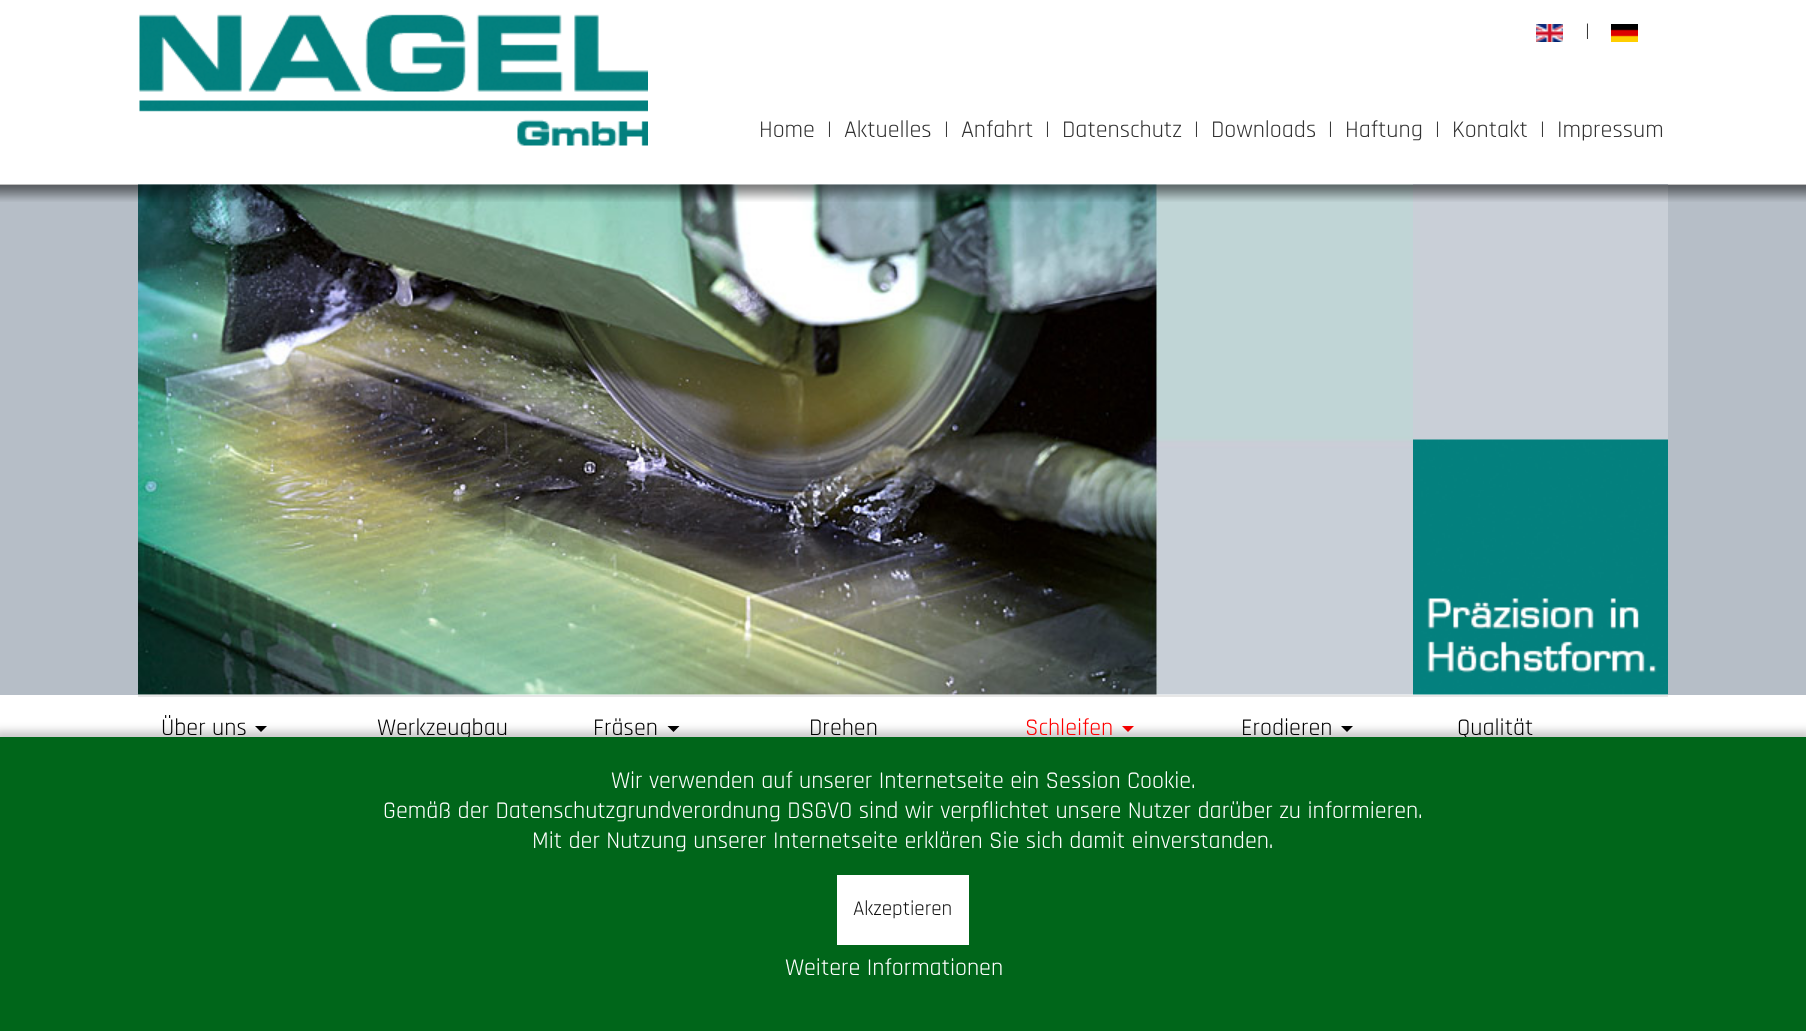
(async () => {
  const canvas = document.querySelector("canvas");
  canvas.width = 1806;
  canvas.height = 1031;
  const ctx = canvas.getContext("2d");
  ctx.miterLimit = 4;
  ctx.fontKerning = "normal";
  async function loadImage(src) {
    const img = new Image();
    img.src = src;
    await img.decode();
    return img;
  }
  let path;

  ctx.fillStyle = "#ffffff";
  ctx.fillRect(0, 0, 1806, 1031);
  ctx.drawImage(await loadImage("img/1.png"), 139, 14, 509, 132);
  ctx.drawImage(await loadImage("img/2.png"), 1536, 24, 27, 18);
  ctx.drawImage(await loadImage("img/3.png"), 1611, 24, 27, 18);
  ctx.fillStyle = "#b6bec7";
  ctx.fillRect(0, 185, 1806, 510);
  ctx.fillStyle = "#ffffff";
  ctx.fillRect(138, 694, 1530, 1);
  ctx.drawImage(await loadImage("img/4.png"), 138, 184, 1275, 511);
  ctx.fillStyle = "#c9cfd7";
  ctx.fillRect(1413, 184, 255, 256);
  ctx.drawImage(await loadImage("img/5.png"), 1413, 439, 255, 256);
  ctx.drawImage(await loadImage("img/6.png"), 0, 184, 1806, 18);
  ctx.fillStyle = "#e7e7e7";
  ctx.fillRect(138, 695, 1530, 2);
  ctx.fillStyle = "#000000";
  path = new Path2D("M255 726H267L261 732Z");
  ctx.fill(path);
  path = new Path2D("M667.5 726H679.5L673.5 732Z");
  ctx.fill(path);
  ctx.fillStyle = "#ff0000";
  path = new Path2D("M1122 726H1134L1128 732Z");
  ctx.fill(path);
  ctx.fillStyle = "#000000";
  path = new Path2D("M1341 726H1353L1347 732Z");
  ctx.fill(path);
  ctx.fillStyle = "rgba(0, 0, 0, 0.21)";
  ctx.filter = "blur(4px)";
  ctx.beginPath();
  ctx.rect(-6, 731, 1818, 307);
  ctx.fill();
  ctx.filter = "none";
  ctx.font = "24px Rajdhani";
  ctx.fillStyle = "#333333";
  for (const [text, x, y] of [
    ["|", 1585, 39],
    ["Home", 759, 137],
    ["|", 827, 137],
    ["Aktuelles", 844, 137],
    ["|", 944, 137],
    ["Anfahrt", 961, 137],
    ["|", 1045, 137],
    ["Datenschutz", 1062, 137],
    ["|", 1194, 137],
    ["Downloads", 1211, 137],
    ["|", 1328, 137],
    ["Haftung", 1345, 137],
    ["|", 1435, 137],
    ["Kontakt", 1452, 137],
    ["|", 1540, 137],
    ["Impressum", 1557, 137],
  ]) {
    ctx.fillText(text, x, y);
  }
  ctx.fillStyle = "#000000";
  for (const [text, x, y] of [
    ["Über uns", 161, 735],
    ["Werkzeugbau", 377, 735],
    ["Fräsen", 593, 735],
    ["Drehen", 809, 735],
  ]) {
    ctx.fillText(text, x, y);
  }
  ctx.fillStyle = "#ff0000";
  ctx.fillText("Schleifen", 1025, 735);
  ctx.fillStyle = "#000000";
  ctx.fillText("Erodieren", 1241, 735);
  ctx.fillText("Qualität", 1457, 735);
  ctx.fillStyle = "#00661a";
  ctx.fillRect(0, 737, 1806, 294);
  ctx.fillStyle = "#ffffff";
  for (const [text, x, y] of [
    ["Wir verwenden auf unserer Internetseite ein Session Cookie.", 611, 788],
    ["Gemäß der Datenschutzgrundverordnung DSGVO sind wir verpflichtet unsere Nutzer darüber zu informieren.", 383, 818],
    ["Mit der Nutzung unserer Internetseite erklären Sie sich damit einverstanden.", 532, 848],
  ]) {
    ctx.fillText(text, x, y);
  }
  ctx.fillRect(837, 875, 132, 70);
  ctx.font = "21px Rajdhani";
  ctx.fillStyle = "#111111";
  ctx.fillText("Akzeptieren", 853, 915);
  ctx.font = "24px Rajdhani";
  ctx.fillStyle = "#ffffff";
  ctx.fillText("Weitere Informationen", 785, 975);
})();
